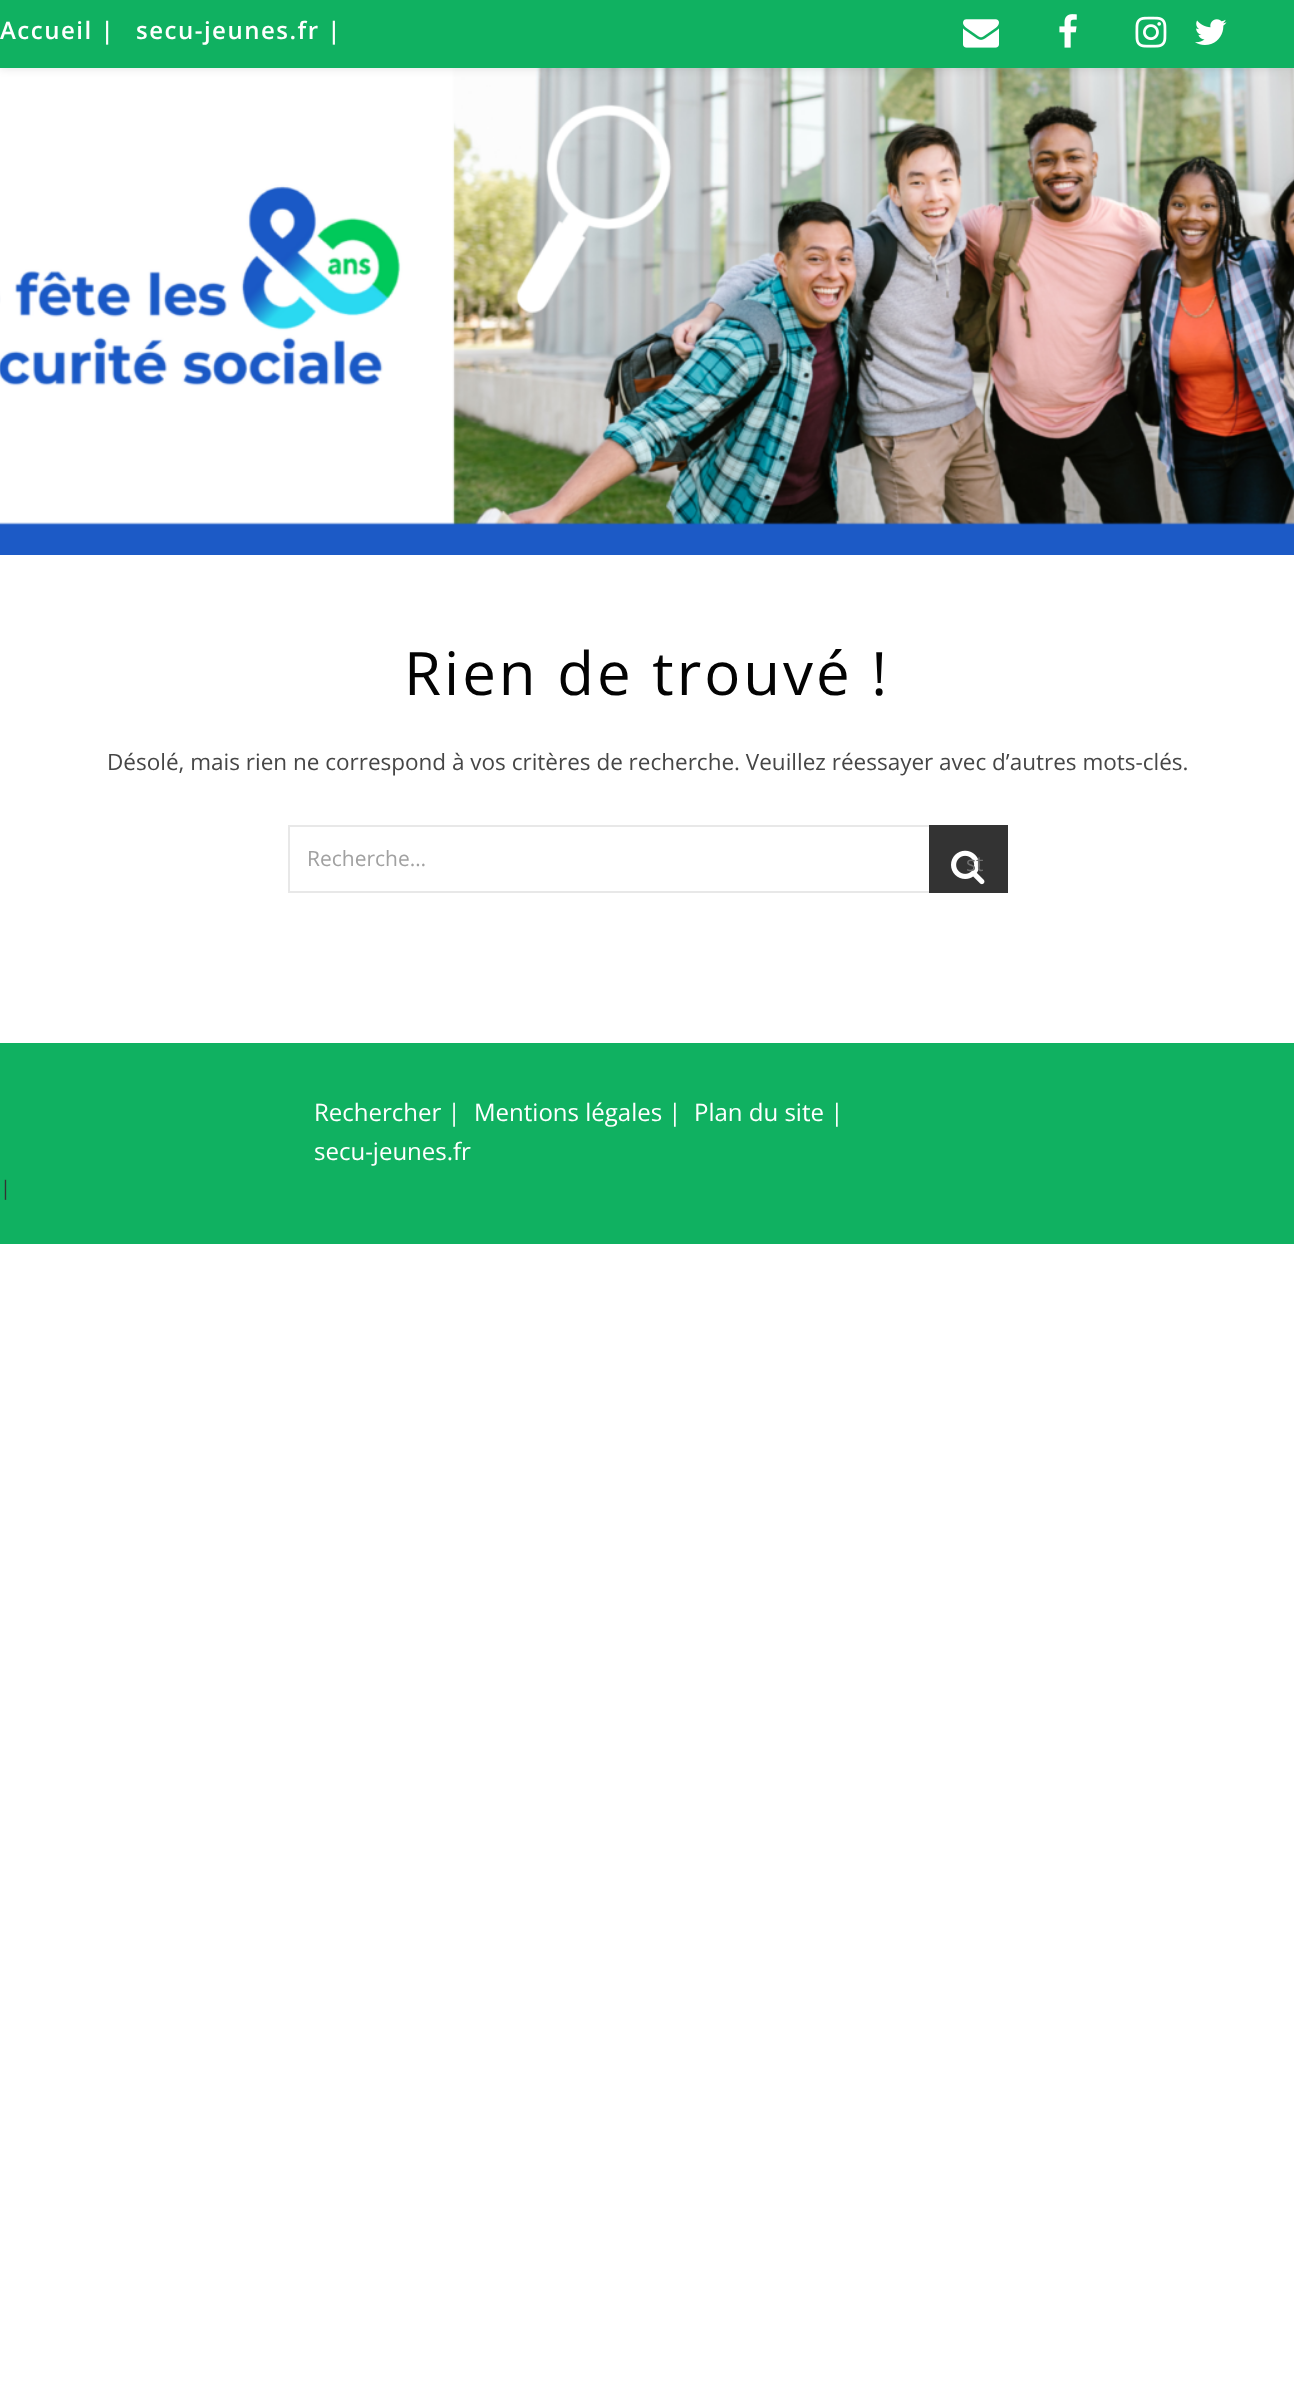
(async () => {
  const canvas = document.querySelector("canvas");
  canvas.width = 1294;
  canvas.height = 2407;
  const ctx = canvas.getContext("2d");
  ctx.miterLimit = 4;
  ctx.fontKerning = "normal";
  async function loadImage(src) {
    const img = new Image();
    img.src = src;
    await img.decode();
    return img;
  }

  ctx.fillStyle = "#ffffff";
  ctx.fillRect(0, 0, 1294, 2407);
  ctx.drawImage(await loadImage("img/5.png"), 0, 68, 1294, 487);
  ctx.fillStyle = "rgba(0, 0, 0, 0.1)";
  ctx.filter = "blur(4px)";
  ctx.beginPath();
  ctx.rect(0, 2, 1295, 67);
  ctx.fill();
  ctx.filter = "none";
  ctx.fillStyle = "#10b161";
  ctx.fillRect(0, 0, 1294, 68);
  ctx.drawImage(await loadImage("img/1.png"), 963, 19, 36, 29);
  ctx.drawImage(await loadImage("img/2.png"), 1059, 14, 18, 34);
  ctx.drawImage(await loadImage("img/3.png"), 1135, 16, 32, 32);
  ctx.drawImage(await loadImage("img/4.png"), 1195, 19, 32, 26);
  ctx.strokeStyle = "#e8e8e8";
  ctx.lineWidth = 2;
  ctx.strokeRect(289, 826, 718, 66);
  ctx.fillStyle = "#333333";
  ctx.fillRect(929, 825, 79, 68);
  ctx.drawImage(await loadImage("img/6.png"), 951, 850, 34, 35);
  ctx.fillStyle = "#10b161";
  ctx.fillRect(0, 1043, 1294, 201);
  ctx.letterSpacing = "1.5px";
  ctx.font = "600 24px Open Sans";
  ctx.fillStyle = "#ffffff";
  ctx.fillText("Accueil |", 0, 39);
  ctx.fillText("secu-jeunes.fr |", 136, 39);
  ctx.letterSpacing = "3px";
  ctx.font = "60px Open Sans";
  ctx.fillStyle = "#030303";
  ctx.fillText("Rien de trouvé !", 404, 695);
  ctx.letterSpacing = "0px";
  ctx.font = "22.5px Open Sans";
  ctx.fillStyle = "#464646";
  ctx.fillText("Désolé, mais rien ne correspond à vos critères de recherche. Veuillez réessayer avec d’autres mots-clés.", 107, 770);
  ctx.font = "21px Open Sans";
  ctx.fillStyle = "#a1a1a1";
  ctx.fillText("Recherche…", 307, 866);
  ctx.fillStyle = "#6f6f6f";
  ctx.fillText("st", 966, 871);
  ctx.font = "24px Open Sans";
  ctx.fillStyle = "#ffffff";
  for (const [text, x, y] of [
    ["Rechercher |", 314, 1121],
    ["Mentions légales |", 474, 1121],
    ["Plan du site |", 694, 1121],
    ["secu-jeunes.fr", 314, 1160],
  ]) {
    ctx.fillText(text, x, y);
  }
  ctx.font = "20px Open Sans";
  ctx.fillStyle = "#333333";
  ctx.fillText("|", 0, 1195);
})();
